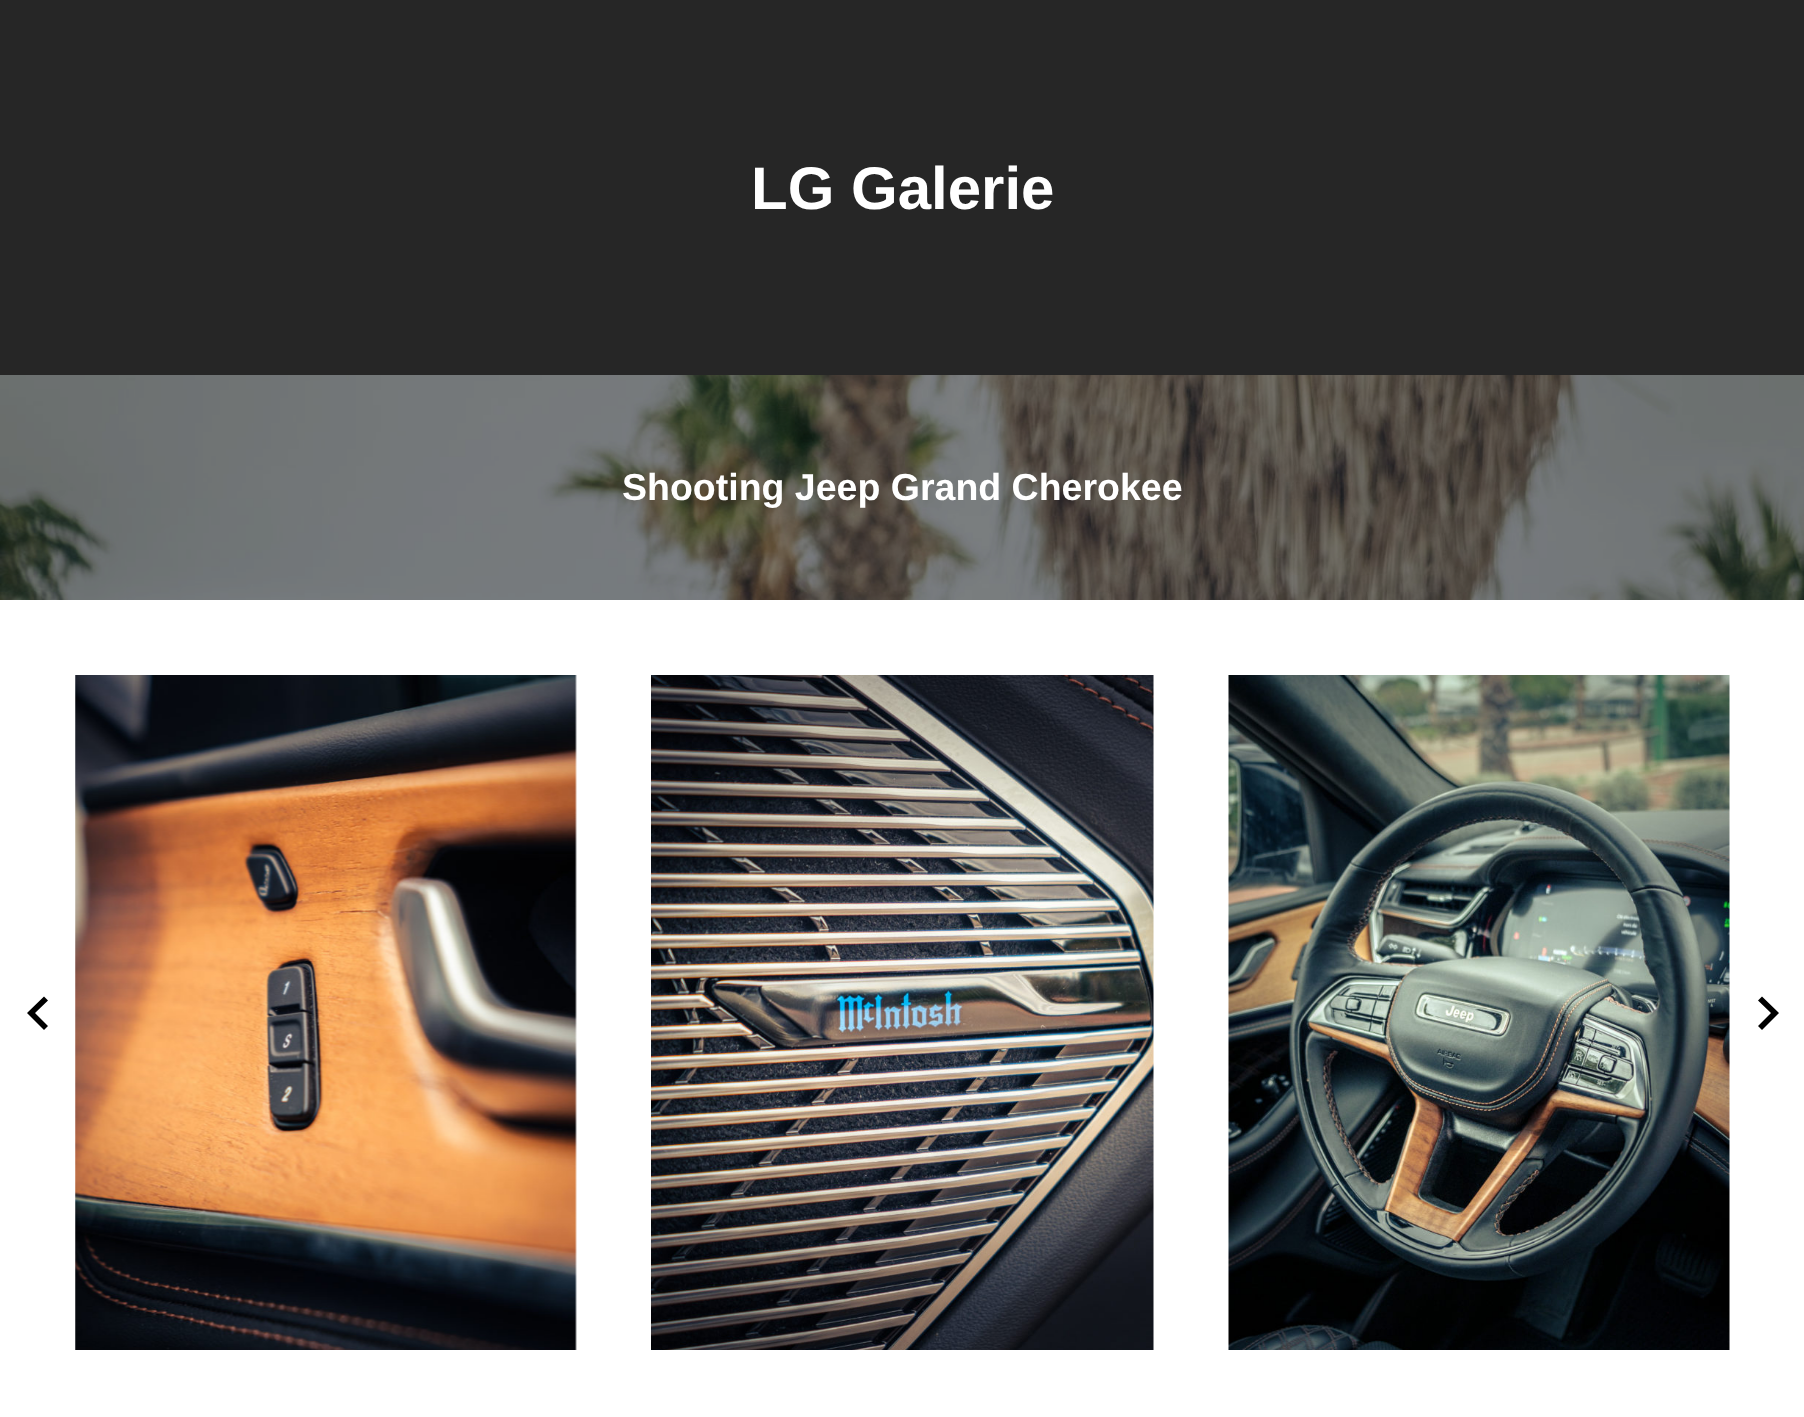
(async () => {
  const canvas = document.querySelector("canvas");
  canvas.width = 1804;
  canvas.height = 1417;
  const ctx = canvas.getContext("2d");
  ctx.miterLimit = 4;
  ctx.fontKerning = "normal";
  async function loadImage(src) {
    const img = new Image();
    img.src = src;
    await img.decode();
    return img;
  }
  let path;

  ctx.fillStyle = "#ffffff";
  ctx.fillRect(0, 0, 1804, 1417);
  ctx.fillStyle = "#262626";
  ctx.fillRect(0, 0, 1804, 375);
  ctx.drawImage(await loadImage("img/1.png"), 0, 375, 1804, 225);
  ctx.fillStyle = "#000000";
  path = new Path2D("M48 1026L35 1013L48 1000.5L44 996.5L27 1013L44 1030Z");
  ctx.fill(path);
  ctx.drawImage(await loadImage("img/2.png"), 75, 675, 502, 675);
  ctx.drawImage(await loadImage("img/3.png"), 651, 675, 503, 675);
  ctx.drawImage(await loadImage("img/4.png"), 1228, 675, 502, 675);
  path = new Path2D("M1758 1026L1771 1013L1758 1000.5L1762 996.5L1779 1013L1762 1030Z");
  ctx.fill(path);
  ctx.font = "bold 60px Liberation Sans";
  ctx.fillStyle = "#ffffff";
  ctx.fillText("LG Galerie", 751, 209);
  ctx.font = "bold 37.5px Liberation Sans";
  ctx.fillText("Shooting Jeep Grand Cherokee", 622, 500);
})();
